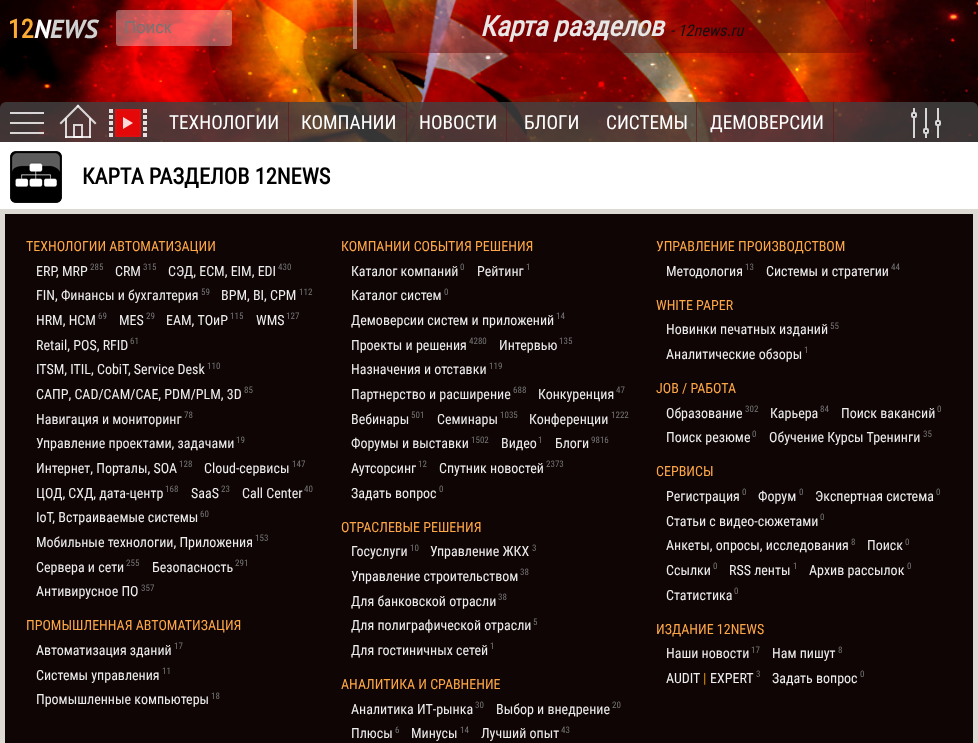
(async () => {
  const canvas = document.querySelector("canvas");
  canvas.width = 978;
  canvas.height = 743;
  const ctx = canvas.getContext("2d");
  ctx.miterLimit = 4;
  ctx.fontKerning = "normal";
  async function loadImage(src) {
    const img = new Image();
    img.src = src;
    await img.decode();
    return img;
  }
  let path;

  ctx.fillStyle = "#ffffff";
  ctx.fillRect(0, 0, 978, 743);
  ctx.drawImage(await loadImage("img/1.png"), 0, 0, 978, 142);
  ctx.fillStyle = "rgba(255, 255, 255, 0.35)";
  ctx.beginPath();
  ctx.roundRect(116, 10, 116, 36, 3);
  ctx.fill();
  ctx.fillStyle = "rgba(95, 2, 4, 0.46)";
  ctx.beginPath();
  ctx.roundRect(353, 0, 513, 53, [0, 0, 8, 8]);
  ctx.fill();
  ctx.fillStyle = "rgba(242, 231, 223, 0.5)";
  ctx.fillRect(353, 0, 4, 49);
  ctx.fillStyle = "rgba(66, 66, 66, 0.8)";
  ctx.beginPath();
  ctx.roundRect(0, 102, 978, 40, [6, 6, 0, 0]);
  ctx.fill();
  for (const [x, y, w, h, color] of [
    [10, 122, 34, 2, "rgba(255, 255, 255, 0.8)"],
    [10, 112, 34, 2, "rgba(255, 255, 255, 0.8)"],
    [10, 132, 34, 2, "rgba(255, 255, 255, 0.8)"],
    [89, 118, 2, 20, "rgba(255, 255, 255, 0.8)"],
    [65, 136, 26, 2, "rgba(255, 255, 255, 0.8)"],
    [65, 118, 2, 20, "rgba(255, 255, 255, 0.8)"],
  ]) {
    ctx.fillStyle = color;
    ctx.fillRect(x, y, w, h);
  }
  ctx.strokeStyle = "rgba(255, 255, 255, 0.8)";
  ctx.lineWidth = 2;
  ctx.strokeRect(74, 125, 8, 12);
  path = new Path2D("M78 104.5L96.5 123L95 124.5L76.5 106Z");
  ctx.fill(path);
  path = new Path2D("M78 104.5L79.5 106L61 124.5L59.5 123Z");
  ctx.fill(path);
  ctx.fillStyle = "rgba(255, 0, 0, 0.85)";
  ctx.beginPath();
  ctx.rect(116, 110, 24, 26);
  ctx.fill();
  ctx.strokeStyle = "#e00f0f";
  ctx.stroke();
  for (const [x, y, w, h, color] of [
    [143, 133, 4, 4, "rgba(255, 255, 255, 0.85)"],
    [143, 127, 4, 4, "#e5e1e1"],
    [143, 121, 4, 4, "#e5e1e1"],
    [143, 115, 4, 4, "#e5e1e1"],
    [143, 109, 4, 4, "rgba(255, 255, 255, 0.85)"],
    [109, 133, 4, 4, "#e5e1e1"],
    [109, 127, 4, 4, "#e5e1e1"],
    [109, 121, 4, 4, "rgba(255, 255, 255, 0.85)"],
    [109, 115, 4, 4, "rgba(255, 255, 255, 0.85)"],
    [109, 109, 4, 4, "#e5e1e1"],
  ]) {
    ctx.fillStyle = color;
    ctx.fillRect(x, y, w, h);
  }
  ctx.fillStyle = "#fbdada";
  path = new Path2D("M123 129V117L133 123Z");
  ctx.fill(path);
  for (const [x, y, w, h, color] of [
    [288, 102, 1, 40, "rgba(95, 28, 28, 0.71)"],
    [406, 102, 1, 40, "rgba(95, 28, 28, 0.71)"],
    [506, 102, 1, 40, "rgba(95, 28, 28, 0.71)"],
    [696, 102, 1, 40, "rgba(95, 28, 28, 0.71)"],
    [833, 102, 1, 40, "rgba(95, 28, 28, 0.71)"],
    [937, 108, 2, 30, "rgba(255, 255, 255, 0.8)"],
    [925, 108, 2, 30, "rgba(255, 255, 255, 0.8)"],
    [913, 108, 2, 30, "rgba(255, 255, 255, 0.8)"],
  ]) {
    ctx.fillStyle = color;
    ctx.fillRect(x, y, w, h);
  }
  ctx.fillStyle = "#d7d7d7";
  ctx.beginPath();
  ctx.roundRect(935, 120, 6, 6, 2);
  ctx.fill();
  ctx.fillStyle = "#d8d7d7";
  ctx.beginPath();
  ctx.roundRect(923, 128, 6, 6, 2);
  ctx.fill();
  ctx.beginPath();
  ctx.roundRect(911, 112, 6, 6, 2);
  ctx.fill();
  for (const [x, y, w, h, color] of [
    [937, 122, 2, 2, "#343333"],
    [925, 130, 2, 2, "#343333"],
    [913, 114, 2, 2, "#353333"],
  ]) {
    ctx.fillStyle = color;
    ctx.fillRect(x, y, w, h);
  }
  ctx.drawImage(await loadImage("img/2.png"), 10, 151, 52, 52);
  ctx.fillStyle = "#0f0505";
  ctx.beginPath();
  ctx.rect(2.5, 211.5, 973, 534);
  ctx.fill();
  ctx.strokeStyle = "#ddd9d3";
  ctx.lineWidth = 5;
  ctx.stroke();
  ctx.font = "bold 26px Roboto Condensed";
  ctx.fillStyle = "#fbac34";
  ctx.fillText("12", 8, 38);
  ctx.font = "italic bold 26px PT Sans";
  ctx.fillStyle = "#ffffff";
  ctx.fillText("N", 34, 38);
  ctx.fillStyle = "#d1d1d1";
  ctx.fillText("EWS", 50, 38);
  ctx.font = "17px Liberation Sans";
  ctx.fillStyle = "#757575";
  ctx.fillText("Поиск", 124, 33);
  ctx.font = "italic bold 28px Roboto Condensed";
  ctx.fillStyle = "#e9e6e6";
  ctx.fillText("Карта разделов", 480, 36);
  ctx.font = "italic 16px Roboto Condensed";
  ctx.fillStyle = "#111111";
  ctx.fillText("- 12news.ru", 670, 36);
  ctx.font = "19.25px Roboto Condensed";
  ctx.fillStyle = "#ffffff";
  for (const [text, x, y] of [
    ["ТЕХНОЛОГИИ", 169, 129],
    ["КОМПАНИИ", 301, 129],
    ["НОВОСТИ", 419, 129],
    ["БЛОГИ", 524, 129],
    ["СИСТЕМЫ", 606, 129],
    ["ДЕМОВЕРСИИ", 710, 129],
  ]) {
    ctx.fillText(text, x, y);
  }
  ctx.font = "bold 22.4px Roboto Condensed";
  ctx.fillStyle = "#000000";
  ctx.fillText("КАРТА РАЗДЕЛОВ 12NEWS", 82, 184);
  ctx.font = "14px Roboto Condensed";
  ctx.fillStyle = "#fea746";
  ctx.fillText("ТЕХНОЛОГИИ АВТОМАТИЗАЦИИ", 26, 251);
  ctx.fillStyle = "#eeeeee";
  ctx.fillText("ERP, MRP", 36, 276);
  ctx.font = "9px Roboto Condensed";
  ctx.fillStyle = "#757575";
  ctx.fillText("285", 90, 270);
  ctx.font = "14px Roboto Condensed";
  ctx.fillStyle = "#eeeeee";
  ctx.fillText("CRM", 115, 276);
  ctx.font = "9px Roboto Condensed";
  ctx.fillStyle = "#757575";
  ctx.fillText("315", 143, 270);
  ctx.font = "14px Roboto Condensed";
  ctx.fillStyle = "#eeeeee";
  ctx.fillText("СЭД, ECM, EIM, EDI", 168, 276);
  ctx.font = "9px Roboto Condensed";
  ctx.fillStyle = "#757575";
  ctx.fillText("430", 278, 270);
  ctx.font = "14px Roboto Condensed";
  ctx.fillStyle = "#eeeeee";
  ctx.fillText("FIN, Финансы и бухгалтерия", 36, 300);
  ctx.font = "9px Roboto Condensed";
  ctx.fillStyle = "#757575";
  ctx.fillText("59", 201, 295);
  ctx.font = "14px Roboto Condensed";
  ctx.fillStyle = "#eeeeee";
  ctx.fillText("BPM, BI, CPM", 221, 300);
  ctx.font = "9px Roboto Condensed";
  ctx.fillStyle = "#757575";
  ctx.fillText("112", 299, 295);
  ctx.font = "14px Roboto Condensed";
  ctx.fillStyle = "#eeeeee";
  ctx.fillText("HRM, НСM", 36, 325);
  ctx.font = "9px Roboto Condensed";
  ctx.fillStyle = "#757575";
  ctx.fillText("69", 98, 319);
  ctx.font = "14px Roboto Condensed";
  ctx.fillStyle = "#eeeeee";
  ctx.fillText("MES", 119, 325);
  ctx.font = "9px Roboto Condensed";
  ctx.fillStyle = "#757575";
  ctx.fillText("29", 146, 319);
  ctx.font = "14px Roboto Condensed";
  ctx.fillStyle = "#eeeeee";
  ctx.fillText("EAM, ТОиР", 166, 325);
  ctx.font = "9px Roboto Condensed";
  ctx.fillStyle = "#757575";
  ctx.fillText("115", 230, 319);
  ctx.font = "14px Roboto Condensed";
  ctx.fillStyle = "#eeeeee";
  ctx.fillText("WMS", 256, 325);
  ctx.font = "9px Roboto Condensed";
  ctx.fillStyle = "#757575";
  ctx.fillText("127", 286, 319);
  ctx.font = "14px Roboto Condensed";
  ctx.fillStyle = "#eeeeee";
  ctx.fillText("Retail, POS, RFID", 36, 350);
  ctx.font = "9px Roboto Condensed";
  ctx.fillStyle = "#757575";
  ctx.fillText("61", 130, 344);
  ctx.font = "14px Roboto Condensed";
  ctx.fillStyle = "#eeeeee";
  ctx.fillText("ITSM, ITIL, CobiT, Service Desk", 36, 374);
  ctx.font = "9px Roboto Condensed";
  ctx.fillStyle = "#757575";
  ctx.fillText("110", 207, 369);
  ctx.font = "14px Roboto Condensed";
  ctx.fillStyle = "#eeeeee";
  ctx.fillText("САПР, CAD/CAM/CAE, PDM/PLM, 3D", 36, 399);
  ctx.font = "9px Roboto Condensed";
  ctx.fillStyle = "#757575";
  ctx.fillText("85", 244, 393);
  ctx.font = "14px Roboto Condensed";
  ctx.fillStyle = "#eeeeee";
  ctx.fillText("Навигация и мониторинг", 36, 424);
  ctx.font = "9px Roboto Condensed";
  ctx.fillStyle = "#757575";
  ctx.fillText("78", 184, 418);
  ctx.font = "14px Roboto Condensed";
  ctx.fillStyle = "#eeeeee";
  ctx.fillText("Управление проектами, задачами", 36, 448);
  ctx.font = "9px Roboto Condensed";
  ctx.fillStyle = "#757575";
  ctx.fillText("19", 236, 443);
  ctx.font = "14px Roboto Condensed";
  ctx.fillStyle = "#eeeeee";
  ctx.fillText("Интернет, Порталы, SOA", 36, 473);
  ctx.font = "9px Roboto Condensed";
  ctx.fillStyle = "#757575";
  ctx.fillText("128", 179, 467);
  ctx.font = "14px Roboto Condensed";
  ctx.fillStyle = "#eeeeee";
  ctx.fillText("Cloud-сервисы", 204, 473);
  ctx.font = "9px Roboto Condensed";
  ctx.fillStyle = "#757575";
  ctx.fillText("147", 292, 467);
  ctx.font = "14px Roboto Condensed";
  ctx.fillStyle = "#eeeeee";
  ctx.fillText("ЦОД, СХД, дата-центр", 36, 498);
  ctx.font = "9px Roboto Condensed";
  ctx.fillStyle = "#757575";
  ctx.fillText("168", 165, 492);
  ctx.font = "14px Roboto Condensed";
  ctx.fillStyle = "#eeeeee";
  ctx.fillText("SaaS", 191, 498);
  ctx.font = "9px Roboto Condensed";
  ctx.fillStyle = "#757575";
  ctx.fillText("23", 221, 492);
  ctx.font = "14px Roboto Condensed";
  ctx.fillStyle = "#eeeeee";
  ctx.fillText("Call Center", 242, 498);
  ctx.font = "9px Roboto Condensed";
  ctx.fillStyle = "#757575";
  ctx.fillText("40", 304, 492);
  ctx.font = "14px Roboto Condensed";
  ctx.fillStyle = "#eeeeee";
  ctx.fillText("IoT, Встраиваемые системы", 36, 522);
  ctx.font = "9px Roboto Condensed";
  ctx.fillStyle = "#757575";
  ctx.fillText("60", 200, 517);
  ctx.font = "14px Roboto Condensed";
  ctx.fillStyle = "#eeeeee";
  ctx.fillText("Мобильные технологии, Приложения", 36, 547);
  ctx.font = "9px Roboto Condensed";
  ctx.fillStyle = "#757575";
  ctx.fillText("153", 255, 541);
  ctx.font = "14px Roboto Condensed";
  ctx.fillStyle = "#eeeeee";
  ctx.fillText("Сервера и сети", 36, 572);
  ctx.font = "9px Roboto Condensed";
  ctx.fillStyle = "#757575";
  ctx.fillText("255", 126, 566);
  ctx.font = "14px Roboto Condensed";
  ctx.fillStyle = "#eeeeee";
  ctx.fillText("Безопасность", 152, 572);
  ctx.font = "9px Roboto Condensed";
  ctx.fillStyle = "#757575";
  ctx.fillText("291", 235, 566);
  ctx.font = "14px Roboto Condensed";
  ctx.fillStyle = "#eeeeee";
  ctx.fillText("Антивирусное ПО", 36, 596);
  ctx.font = "9px Roboto Condensed";
  ctx.fillStyle = "#757575";
  ctx.fillText("357", 141, 591);
  ctx.font = "14px Roboto Condensed";
  ctx.fillStyle = "#fea746";
  ctx.fillText("ПРОМЫШЛЕННАЯ АВТОМАТИЗАЦИЯ", 26, 630);
  ctx.fillStyle = "#eeeeee";
  ctx.fillText("Автоматизация зданий", 36, 655);
  ctx.font = "9px Roboto Condensed";
  ctx.fillStyle = "#757575";
  ctx.fillText("17", 174, 649);
  ctx.font = "14px Roboto Condensed";
  ctx.fillStyle = "#eeeeee";
  ctx.fillText("Системы управления", 36, 680);
  ctx.font = "9px Roboto Condensed";
  ctx.fillStyle = "#757575";
  ctx.fillText("11", 162, 674);
  ctx.font = "14px Roboto Condensed";
  ctx.fillStyle = "#eeeeee";
  ctx.fillText("Промышленные компьютеры", 36, 704);
  ctx.font = "9px Roboto Condensed";
  ctx.fillStyle = "#757575";
  ctx.fillText("18", 211, 699);
  ctx.font = "14px Roboto Condensed";
  ctx.fillStyle = "#fea746";
  ctx.fillText("КОМПАНИИ СОБЫТИЯ РЕШЕНИЯ", 341, 251);
  ctx.fillStyle = "#eeeeee";
  ctx.fillText("Каталог компаний", 351, 276);
  ctx.font = "9px Roboto Condensed";
  ctx.fillStyle = "#757575";
  ctx.fillText("0", 460, 270);
  ctx.font = "14px Roboto Condensed";
  ctx.fillStyle = "#eeeeee";
  ctx.fillText("Рейтинг", 477, 276);
  ctx.font = "9px Roboto Condensed";
  ctx.fillStyle = "#757575";
  ctx.fillText("1", 526, 270);
  ctx.font = "14px Roboto Condensed";
  ctx.fillStyle = "#eeeeee";
  ctx.fillText("Каталог систем", 351, 300);
  ctx.font = "9px Roboto Condensed";
  ctx.fillStyle = "#757575";
  ctx.fillText("0", 444, 295);
  ctx.font = "14px Roboto Condensed";
  ctx.fillStyle = "#eeeeee";
  ctx.fillText("Демоверсии систем и приложений", 351, 325);
  ctx.font = "9px Roboto Condensed";
  ctx.fillStyle = "#757575";
  ctx.fillText("14", 556, 319);
  ctx.font = "14px Roboto Condensed";
  ctx.fillStyle = "#eeeeee";
  ctx.fillText("Проекты и решения", 351, 350);
  ctx.font = "9px Roboto Condensed";
  ctx.fillStyle = "#757575";
  ctx.fillText("4280", 469, 344);
  ctx.font = "14px Roboto Condensed";
  ctx.fillStyle = "#eeeeee";
  ctx.fillText("Интервью", 499, 350);
  ctx.font = "9px Roboto Condensed";
  ctx.fillStyle = "#757575";
  ctx.fillText("135", 559, 344);
  ctx.font = "14px Roboto Condensed";
  ctx.fillStyle = "#eeeeee";
  ctx.fillText("Назначения и отставки", 351, 374);
  ctx.font = "9px Roboto Condensed";
  ctx.fillStyle = "#757575";
  ctx.fillText("119", 489, 369);
  ctx.font = "14px Roboto Condensed";
  ctx.fillStyle = "#eeeeee";
  ctx.fillText("Партнерство и расширение", 351, 399);
  ctx.font = "9px Roboto Condensed";
  ctx.fillStyle = "#757575";
  ctx.fillText("688", 513, 393);
  ctx.font = "14px Roboto Condensed";
  ctx.fillStyle = "#eeeeee";
  ctx.fillText("Конкуренция", 538, 399);
  ctx.font = "9px Roboto Condensed";
  ctx.fillStyle = "#757575";
  ctx.fillText("47", 616, 393);
  ctx.font = "14px Roboto Condensed";
  ctx.fillStyle = "#eeeeee";
  ctx.fillText("Вебинары", 351, 424);
  ctx.font = "9px Roboto Condensed";
  ctx.fillStyle = "#757575";
  ctx.fillText("501", 411, 418);
  ctx.font = "14px Roboto Condensed";
  ctx.fillStyle = "#eeeeee";
  ctx.fillText("Семинары", 437, 424);
  ctx.font = "9px Roboto Condensed";
  ctx.fillStyle = "#757575";
  ctx.fillText("1035", 500, 418);
  ctx.font = "14px Roboto Condensed";
  ctx.fillStyle = "#eeeeee";
  ctx.fillText("Конференции", 529, 424);
  ctx.font = "9px Roboto Condensed";
  ctx.fillStyle = "#757575";
  ctx.fillText("1222", 611, 418);
  ctx.font = "14px Roboto Condensed";
  ctx.fillStyle = "#eeeeee";
  ctx.fillText("Форумы и выставки", 351, 448);
  ctx.font = "9px Roboto Condensed";
  ctx.fillStyle = "#757575";
  ctx.fillText("1502", 471, 443);
  ctx.font = "14px Roboto Condensed";
  ctx.fillStyle = "#eeeeee";
  ctx.fillText("Видео", 501, 448);
  ctx.font = "9px Roboto Condensed";
  ctx.fillStyle = "#757575";
  ctx.fillText("1", 538, 443);
  ctx.font = "14px Roboto Condensed";
  ctx.fillStyle = "#eeeeee";
  ctx.fillText("Блоги", 555, 448);
  ctx.font = "9px Roboto Condensed";
  ctx.fillStyle = "#757575";
  ctx.fillText("9816", 591, 443);
  ctx.font = "14px Roboto Condensed";
  ctx.fillStyle = "#eeeeee";
  ctx.fillText("Аутсорсинг", 351, 473);
  ctx.font = "9px Roboto Condensed";
  ctx.fillStyle = "#757575";
  ctx.fillText("12", 418, 467);
  ctx.font = "14px Roboto Condensed";
  ctx.fillStyle = "#eeeeee";
  ctx.fillText("Спутник новостей", 439, 473);
  ctx.font = "9px Roboto Condensed";
  ctx.fillStyle = "#757575";
  ctx.fillText("2373", 546, 467);
  ctx.font = "14px Roboto Condensed";
  ctx.fillStyle = "#eeeeee";
  ctx.fillText("Задать вопрос", 351, 498);
  ctx.font = "9px Roboto Condensed";
  ctx.fillStyle = "#757575";
  ctx.fillText("0", 439, 492);
  ctx.font = "14px Roboto Condensed";
  ctx.fillStyle = "#fea746";
  ctx.fillText("ОТРАСЛЕВЫЕ РЕШЕНИЯ", 341, 532);
  ctx.fillStyle = "#eeeeee";
  ctx.fillText("Госуслуги", 351, 556);
  ctx.font = "9px Roboto Condensed";
  ctx.fillStyle = "#757575";
  ctx.fillText("10", 410, 551);
  ctx.font = "14px Roboto Condensed";
  ctx.fillStyle = "#eeeeee";
  ctx.fillText("Управление ЖКХ", 430, 556);
  ctx.font = "9px Roboto Condensed";
  ctx.fillStyle = "#757575";
  ctx.fillText("3", 532, 551);
  ctx.font = "14px Roboto Condensed";
  ctx.fillStyle = "#eeeeee";
  ctx.fillText("Управление строительством", 351, 581);
  ctx.font = "9px Roboto Condensed";
  ctx.fillStyle = "#757575";
  ctx.fillText("38", 520, 575);
  ctx.font = "14px Roboto Condensed";
  ctx.fillStyle = "#eeeeee";
  ctx.fillText("Для банковской отрасли", 351, 606);
  ctx.font = "9px Roboto Condensed";
  ctx.fillStyle = "#757575";
  ctx.fillText("38", 498, 600);
  ctx.font = "14px Roboto Condensed";
  ctx.fillStyle = "#eeeeee";
  ctx.fillText("Для полиграфической отрасли", 351, 630);
  ctx.font = "9px Roboto Condensed";
  ctx.fillStyle = "#757575";
  ctx.fillText("5", 533, 625);
  ctx.font = "14px Roboto Condensed";
  ctx.fillStyle = "#eeeeee";
  ctx.fillText("Для гостиничных сетей", 351, 655);
  ctx.font = "9px Roboto Condensed";
  ctx.fillStyle = "#757575";
  ctx.fillText("1", 490, 649);
  ctx.font = "14px Roboto Condensed";
  ctx.fillStyle = "#fea746";
  ctx.fillText("АНАЛИТИКА И СРАВНЕНИЕ", 341, 689);
  ctx.fillStyle = "#eeeeee";
  ctx.fillText("Аналитика ИТ-рынка", 351, 714);
  ctx.font = "9px Roboto Condensed";
  ctx.fillStyle = "#757575";
  ctx.fillText("30", 475, 708);
  ctx.font = "14px Roboto Condensed";
  ctx.fillStyle = "#eeeeee";
  ctx.fillText("Выбор и внедрение", 496, 714);
  ctx.font = "9px Roboto Condensed";
  ctx.fillStyle = "#757575";
  ctx.fillText("20", 612, 708);
  ctx.font = "14px Roboto Condensed";
  ctx.fillStyle = "#eeeeee";
  ctx.fillText("Плюсы", 351, 738);
  ctx.font = "9px Roboto Condensed";
  ctx.fillStyle = "#757575";
  ctx.fillText("6", 395, 733);
  ctx.font = "14px Roboto Condensed";
  ctx.fillStyle = "#eeeeee";
  ctx.fillText("Минусы", 411, 738);
  ctx.font = "9px Roboto Condensed";
  ctx.fillStyle = "#757575";
  ctx.fillText("14", 460, 733);
  ctx.font = "14px Roboto Condensed";
  ctx.fillStyle = "#eeeeee";
  ctx.fillText("Лучший опыт", 481, 738);
  ctx.font = "9px Roboto Condensed";
  ctx.fillStyle = "#757575";
  ctx.fillText("43", 561, 733);
  ctx.font = "14px Roboto Condensed";
  ctx.fillStyle = "#fea746";
  ctx.fillText("УПРАВЛЕНИЕ ПРОИЗВОДСТВОМ", 656, 251);
  ctx.fillStyle = "#eeeeee";
  ctx.fillText("Методология", 666, 276);
  ctx.font = "9px Roboto Condensed";
  ctx.fillStyle = "#757575";
  ctx.fillText("13", 745, 270);
  ctx.font = "14px Roboto Condensed";
  ctx.fillStyle = "#eeeeee";
  ctx.fillText("Системы и стратегии", 766, 276);
  ctx.font = "9px Roboto Condensed";
  ctx.fillStyle = "#757575";
  ctx.fillText("44", 891, 270);
  ctx.font = "14px Roboto Condensed";
  ctx.fillStyle = "#fea746";
  ctx.fillText("WHITE PAPER", 656, 310);
  ctx.fillStyle = "#eeeeee";
  ctx.fillText("Новинки печатных изданий", 666, 334);
  ctx.font = "9px Roboto Condensed";
  ctx.fillStyle = "#757575";
  ctx.fillText("55", 830, 329);
  ctx.font = "14px Roboto Condensed";
  ctx.fillStyle = "#eeeeee";
  ctx.fillText("Аналитические обзоры", 666, 359);
  ctx.font = "9px Roboto Condensed";
  ctx.fillStyle = "#757575";
  ctx.fillText("1", 804, 353);
  ctx.font = "14px Roboto Condensed";
  ctx.fillStyle = "#fea746";
  ctx.fillText("JOB / РАБОТА", 656, 393);
  ctx.fillStyle = "#eeeeee";
  ctx.fillText("Образование", 666, 418);
  ctx.font = "9px Roboto Condensed";
  ctx.fillStyle = "#757575";
  ctx.fillText("302", 745, 412);
  ctx.font = "14px Roboto Condensed";
  ctx.fillStyle = "#eeeeee";
  ctx.fillText("Карьера", 770, 418);
  ctx.font = "9px Roboto Condensed";
  ctx.fillStyle = "#757575";
  ctx.fillText("84", 820, 412);
  ctx.font = "14px Roboto Condensed";
  ctx.fillStyle = "#eeeeee";
  ctx.fillText("Поиск вакансий", 841, 418);
  ctx.font = "9px Roboto Condensed";
  ctx.fillStyle = "#757575";
  ctx.fillText("0", 937, 412);
  ctx.font = "14px Roboto Condensed";
  ctx.fillStyle = "#eeeeee";
  ctx.fillText("Поиск резюме", 666, 442);
  ctx.font = "9px Roboto Condensed";
  ctx.fillStyle = "#757575";
  ctx.fillText("0", 752, 437);
  ctx.font = "14px Roboto Condensed";
  ctx.fillStyle = "#eeeeee";
  ctx.fillText("Обучение Курсы Тренинги", 769, 442);
  ctx.font = "9px Roboto Condensed";
  ctx.fillStyle = "#757575";
  ctx.fillText("35", 923, 437);
  ctx.font = "14px Roboto Condensed";
  ctx.fillStyle = "#fea746";
  ctx.fillText("CЕРВИСЫ", 656, 476);
  ctx.fillStyle = "#eeeeee";
  ctx.fillText("Регистрация", 666, 501);
  ctx.font = "9px Roboto Condensed";
  ctx.fillStyle = "#757575";
  ctx.fillText("0", 742, 495);
  ctx.font = "14px Roboto Condensed";
  ctx.fillStyle = "#eeeeee";
  ctx.fillText("Форум", 758, 501);
  ctx.font = "9px Roboto Condensed";
  ctx.fillStyle = "#757575";
  ctx.fillText("0", 799, 495);
  ctx.font = "14px Roboto Condensed";
  ctx.fillStyle = "#eeeeee";
  ctx.fillText("Экспертная система", 815, 501);
  ctx.font = "9px Roboto Condensed";
  ctx.fillStyle = "#757575";
  ctx.fillText("0", 936, 495);
  ctx.font = "14px Roboto Condensed";
  ctx.fillStyle = "#eeeeee";
  ctx.fillText("Статьи с видео-сюжетами", 666, 526);
  ctx.font = "9px Roboto Condensed";
  ctx.fillStyle = "#757575";
  ctx.fillText("0", 820, 520);
  ctx.font = "14px Roboto Condensed";
  ctx.fillStyle = "#eeeeee";
  ctx.fillText("Анкеты, опросы, исследования", 666, 550);
  ctx.font = "9px Roboto Condensed";
  ctx.fillStyle = "#757575";
  ctx.fillText("8", 851, 545);
  ctx.font = "14px Roboto Condensed";
  ctx.fillStyle = "#eeeeee";
  ctx.fillText("Поиск", 867, 550);
  ctx.font = "9px Roboto Condensed";
  ctx.fillStyle = "#757575";
  ctx.fillText("0", 905, 545);
  ctx.font = "14px Roboto Condensed";
  ctx.fillStyle = "#eeeeee";
  ctx.fillText("Ссылки", 666, 575);
  ctx.font = "9px Roboto Condensed";
  ctx.fillStyle = "#757575";
  ctx.fillText("0", 713, 569);
  ctx.font = "14px Roboto Condensed";
  ctx.fillStyle = "#eeeeee";
  ctx.fillText("RSS ленты", 729, 575);
  ctx.font = "9px Roboto Condensed";
  ctx.fillStyle = "#757575";
  ctx.fillText("1", 793, 569);
  ctx.font = "14px Roboto Condensed";
  ctx.fillStyle = "#eeeeee";
  ctx.fillText("Архив рассылок", 809, 575);
  ctx.font = "9px Roboto Condensed";
  ctx.fillStyle = "#757575";
  ctx.fillText("0", 907, 569);
  ctx.font = "14px Roboto Condensed";
  ctx.fillStyle = "#eeeeee";
  ctx.fillText("Статистика", 666, 600);
  ctx.font = "9px Roboto Condensed";
  ctx.fillStyle = "#757575";
  ctx.fillText("0", 734, 594);
  ctx.font = "14px Roboto Condensed";
  ctx.fillStyle = "#fea746";
  ctx.fillText("ИЗДАНИЕ 12NEWS", 656, 634);
  ctx.fillStyle = "#eeeeee";
  ctx.fillText("Наши новости", 666, 658);
  ctx.font = "9px Roboto Condensed";
  ctx.fillStyle = "#757575";
  ctx.fillText("17", 751, 653);
  ctx.font = "14px Roboto Condensed";
  ctx.fillStyle = "#eeeeee";
  ctx.fillText("Нам пишут", 772, 658);
  ctx.font = "9px Roboto Condensed";
  ctx.fillStyle = "#757575";
  ctx.fillText("8", 838, 653);
  ctx.font = "14px Roboto Condensed";
  ctx.fillStyle = "#eeeeee";
  ctx.fillText("AUDIT", 666, 683);
  ctx.fillStyle = "#e09000";
  ctx.fillText("|", 703, 683);
  ctx.fillStyle = "#eeeeee";
  ctx.fillText("EXPERT", 710, 683);
  ctx.font = "9px Roboto Condensed";
  ctx.fillStyle = "#757575";
  ctx.fillText("3", 756, 677);
  ctx.font = "14px Roboto Condensed";
  ctx.fillStyle = "#eeeeee";
  ctx.fillText("Задать вопрос", 772, 683);
  ctx.font = "9px Roboto Condensed";
  ctx.fillStyle = "#757575";
  ctx.fillText("0", 860, 677);
})();
